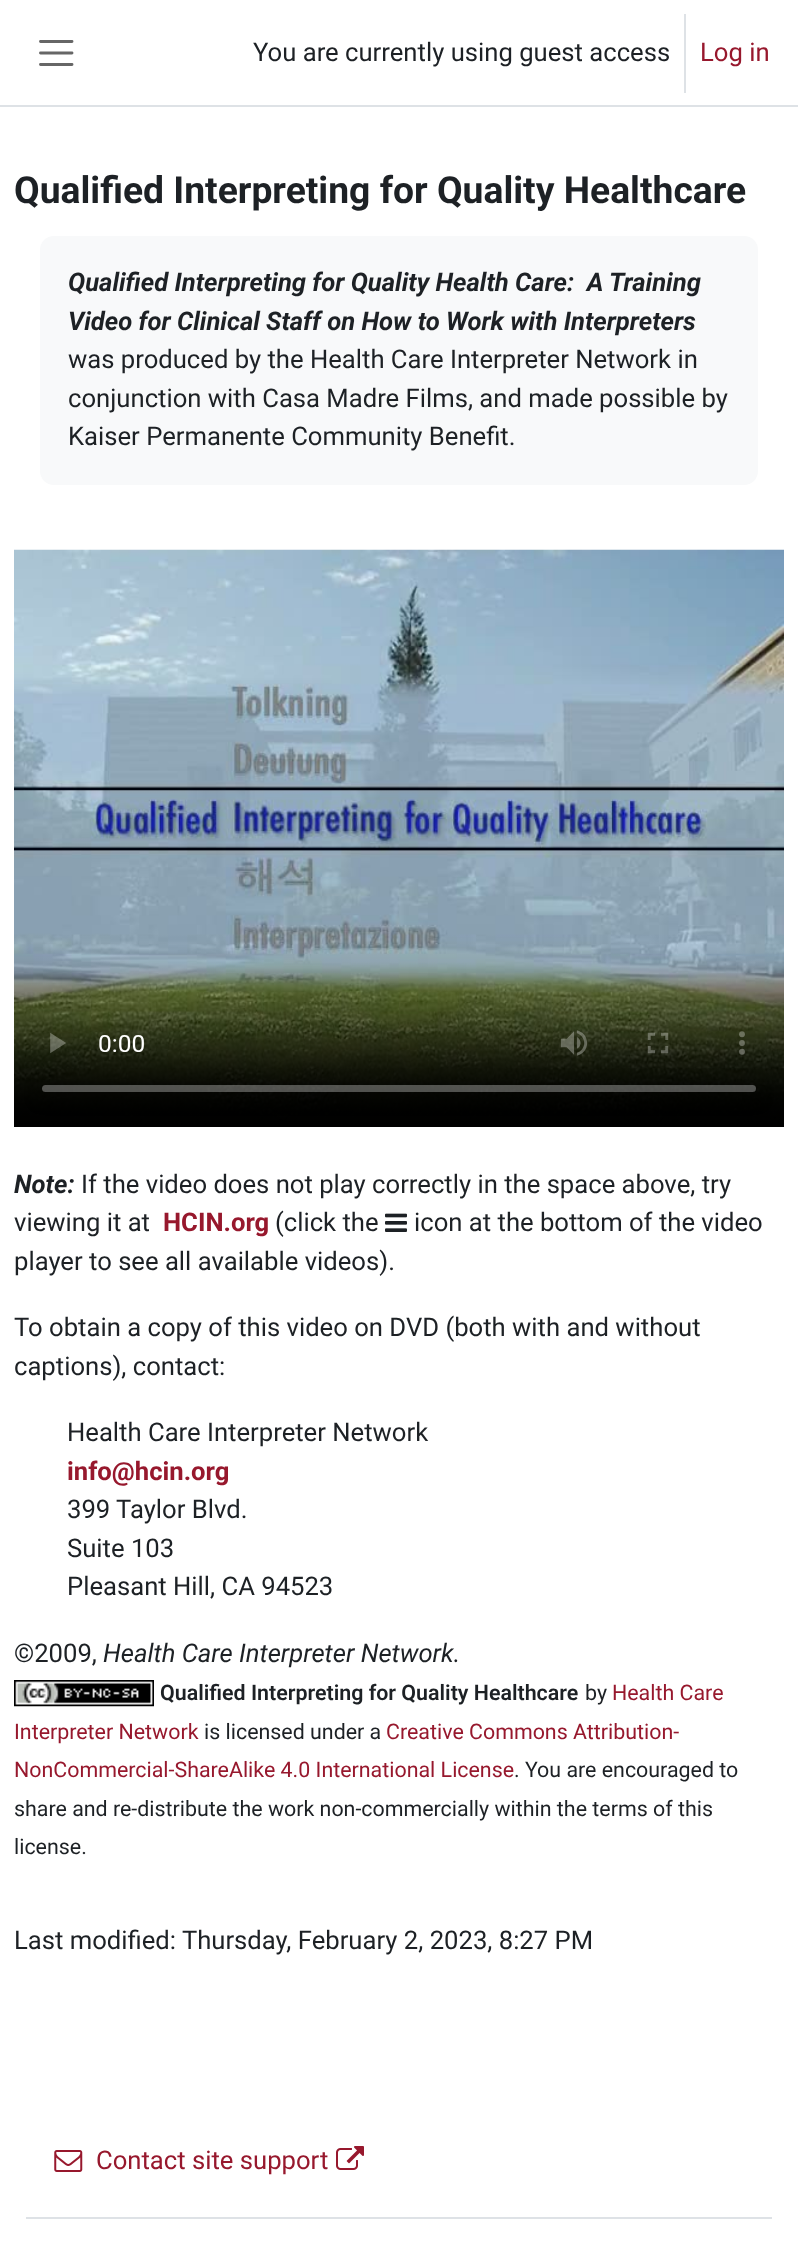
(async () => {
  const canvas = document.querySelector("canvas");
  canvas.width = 798;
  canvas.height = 2262;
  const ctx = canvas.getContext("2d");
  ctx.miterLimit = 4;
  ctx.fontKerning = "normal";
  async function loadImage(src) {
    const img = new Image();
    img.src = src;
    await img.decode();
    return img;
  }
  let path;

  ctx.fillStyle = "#ffffff";
  ctx.fillRect(0, 0, 798, 2262);
  ctx.fillStyle = "#dee2e6";
  ctx.fillRect(0, 105, 798, 2);
  path = new Path2D("M40.5 41.5H72M40.5 53H72M40.5 64.5H72");
  ctx.strokeStyle = "#666666";
  ctx.lineWidth = 2.9;
  ctx.lineCap = "round";
  ctx.stroke(path);
  ctx.fillRect(684, 14, 2, 79);
  ctx.fillStyle = "#f8f9fa";
  ctx.beginPath();
  ctx.roundRect(40, 236, 718, 249, 14);
  ctx.fill();
  ctx.drawImage(await loadImage("img/1.png"), 14, 549, 770, 578);
  ctx.drawImage(await loadImage("img/2.png"), 385, 1213, 22, 19);
  ctx.drawImage(await loadImage("img/3.png"), 14, 1680, 140, 27);
  ctx.fillStyle = "#dee2e6";
  ctx.fillRect(26, 2217, 746, 2);
  ctx.drawImage(await loadImage("img/4.png"), 54, 2150, 29, 22);
  ctx.drawImage(await loadImage("img/5.png"), 336, 2146, 28, 24);
  ctx.font = "25.65px Roboto";
  ctx.fillStyle = "#1d2125";
  ctx.fillText("You are currently using guest access", 253, 61);
  ctx.fillStyle = "#97182d";
  ctx.fillText("Log in", 700, 61);
  ctx.font = "bold 37.25px Roboto";
  ctx.fillStyle = "#1d2125";
  ctx.fillText("Qualified Interpreting for Quality Healthcare", 14, 203);
  ctx.font = "italic bold 25.65px Roboto";
  ctx.fillText("Qualified Interpreting for Quality Health Care:  A Training", 68, 291);
  ctx.fillText("Video for Clinical Staff on How to Work with Interpreters", 68, 330);
  ctx.font = "25.65px Roboto";
  for (const [text, x, y] of [
    ["was produced by the Health Care Interpreter Network in", 68, 368],
    ["conjunction with Casa Madre Films, and made possible by", 68, 407],
    ["Kaiser Permanente Community Benefit.", 68, 445],
  ]) {
    ctx.fillText(text, x, y);
  }
  ctx.font = "italic bold 25.65px Roboto";
  ctx.fillText("Note:", 14, 1193);
  ctx.font = "25.65px Roboto";
  ctx.fillText("If the video does not play correctly in the space above, try", 81, 1193);
  ctx.fillText("viewing it at", 14, 1231);
  ctx.font = "bold 25.65px Roboto";
  ctx.fillStyle = "#97182d";
  ctx.fillText("HCIN.org", 163, 1231);
  ctx.font = "25.65px Roboto";
  ctx.fillStyle = "#1d2125";
  for (const [text, x, y] of [
    ["(click the", 275, 1231],
    ["icon at the bottom of the video", 414, 1231],
    ["player to see all available videos).", 14, 1270],
    ["To obtain a copy of this video on DVD (both with and without", 14, 1336],
    ["captions), contact:", 14, 1375],
    ["Health Care Interpreter Network", 67, 1441],
  ]) {
    ctx.fillText(text, x, y);
  }
  ctx.font = "bold 25.65px Roboto";
  ctx.fillStyle = "#97182d";
  ctx.fillText("info@hcin.org", 67, 1480);
  ctx.font = "25.65px Roboto";
  ctx.fillStyle = "#1d2125";
  for (const [text, x, y] of [
    ["399 Taylor Blvd.", 67, 1518],
    ["Suite 103", 67, 1557],
    ["Pleasant Hill, CA 94523", 67, 1595],
    ["©2009,", 14, 1662],
  ]) {
    ctx.fillText(text, x, y);
  }
  ctx.font = "italic 25.65px Roboto";
  ctx.fillText("Health Care Interpreter Network.", 103, 1662);
  ctx.font = "600 21.4px Roboto";
  ctx.fillText("Qualified Interpreting for Quality Healthcare", 160, 1700);
  ctx.font = "21.4px Roboto";
  ctx.fillText("by", 585, 1700);
  ctx.fillStyle = "#97182d";
  ctx.fillText("Health Care", 612, 1700);
  ctx.fillText("Interpreter Network", 14, 1739);
  ctx.fillStyle = "#1d2125";
  ctx.fillText("is licensed under a", 204, 1739);
  ctx.fillStyle = "#97182d";
  ctx.fillText("Creative Commons Attribution-", 386, 1739);
  ctx.fillText("NonCommercial-ShareAlike 4.0 International License", 14, 1777);
  ctx.fillStyle = "#1d2125";
  for (const [text, x, y] of [
    [". You are encouraged to", 514, 1777],
    ["share and re-distribute the work non-commercially within the terms of this", 14, 1816],
    ["license.", 14, 1854],
  ]) {
    ctx.fillText(text, x, y);
  }
  ctx.font = "25.65px Roboto";
  ctx.fillText("Last modified: Thursday, February 2, 2023, 8:27 PM", 14, 1949);
  ctx.fillStyle = "#97182d";
  ctx.fillText("Contact site support", 96, 2169);
})();
